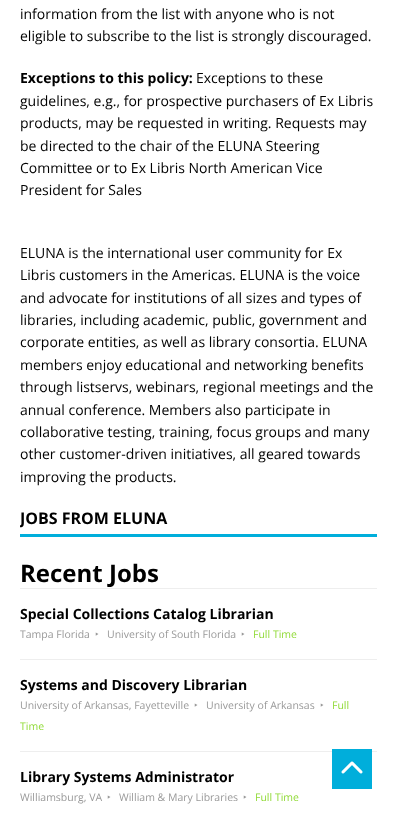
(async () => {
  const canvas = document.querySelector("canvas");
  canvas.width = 397;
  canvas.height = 814;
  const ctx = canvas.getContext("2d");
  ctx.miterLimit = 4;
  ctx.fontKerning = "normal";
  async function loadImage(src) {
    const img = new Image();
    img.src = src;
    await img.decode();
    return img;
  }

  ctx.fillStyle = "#ffffff";
  ctx.fillRect(0, 0, 397, 814);
  for (const [x, y, w, h, color] of [
    [20, 534, 357, 3, "#00aedb"],
    [20, 588, 357, 1, "#eeeeee"],
    [20, 659, 357, 1, "#eeeeee"],
    [20, 751, 357, 1, "#eeeeee"],
    [332, 749, 40, 40, "#00aedb"],
  ]) {
    ctx.fillStyle = color;
    ctx.fillRect(x, y, w, h);
  }
  ctx.drawImage(await loadImage("img/1.png"), 341, 761, 22, 13);
  ctx.font = "14px Open Sans";
  ctx.fillStyle = "#000000";
  ctx.fillText("information from the list with anyone who is not", 20, 19);
  ctx.fillText("eligible to subscribe to the list is strongly discouraged.", 20, 41);
  ctx.font = "bold 14px Open Sans";
  ctx.fillText("Exceptions to this policy:", 20, 83);
  ctx.font = "14px Open Sans";
  for (const [text, x, y] of [
    ["Exceptions to these", 196, 83],
    ["guidelines, e.g., for prospective purchasers of Ex Libris", 20, 106],
    ["products, may be requested in writing. Requests may", 20, 128],
    ["be directed to the chair of the ELUNA Steering", 20, 151],
    ["Committee or to Ex Libris North American Vice", 20, 173],
    ["President for Sales", 20, 195],
    ["ELUNA is the international user community for Ex", 20, 258],
    ["Libris customers in the Americas. ELUNA is the voice", 20, 280],
    ["and advocate for institutions of all sizes and types of", 20, 303],
    ["libraries, including academic, public, government and", 20, 325],
    ["corporate entities, as well as library consortia. ELUNA", 20, 347],
    ["members enjoy educational and networking benefits", 20, 370],
    ["through listservs, webinars, regional meetings and the", 20, 392],
    ["annual conference. Members also participate in", 20, 415],
    ["collaborative testing, training, focus groups and many", 20, 437],
    ["other customer-driven initiatives, all geared towards", 20, 459],
    ["improving the products.", 20, 482],
  ]) {
    ctx.fillText(text, x, y);
  }
  ctx.save();
  ctx.beginPath();
  ctx.rect(20, 508, 357, 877);
  ctx.clip();
  ctx.font = "bold 16px Open Sans";
  ctx.fillText("JOBS FROM ELUNA", 20, 524);
  ctx.restore();
  ctx.font = "bold 24px Open Sans";
  ctx.fillText("Recent Jobs", 20, 582);
  ctx.font = "bold 14px Open Sans";
  ctx.fillText("Special Collections Catalog Librarian", 20, 619);
  ctx.font = "10.5px Open Sans";
  ctx.fillStyle = "#999999";
  ctx.fillText("Tampa Florida", 20, 638);
  ctx.font = "10.5px Noto Sans";
  ctx.fillText("‣", 95, 638);
  ctx.font = "10.5px Open Sans";
  ctx.fillText("University of South Florida", 107, 638);
  ctx.font = "10.5px Noto Sans";
  ctx.fillText("‣", 241, 638);
  ctx.font = "10.5px Open Sans";
  ctx.fillStyle = "#90da36";
  ctx.fillText("Full Time", 253, 638);
  ctx.font = "bold 14px Open Sans";
  ctx.fillStyle = "#000000";
  ctx.fillText("Systems and Discovery Librarian", 20, 690);
  ctx.font = "10.5px Open Sans";
  ctx.fillStyle = "#999999";
  ctx.fillText("University of Arkansas, Fayetteville", 20, 709);
  ctx.font = "10.5px Noto Sans";
  ctx.fillText("‣", 194, 709);
  ctx.font = "10.5px Open Sans";
  ctx.fillText("University of Arkansas", 206, 709);
  ctx.font = "10.5px Noto Sans";
  ctx.fillText("‣", 320, 709);
  ctx.font = "10.5px Open Sans";
  ctx.fillStyle = "#90da36";
  ctx.fillText("Full", 332, 709);
  ctx.fillText("Time", 20, 730);
  ctx.font = "bold 14px Open Sans";
  ctx.fillStyle = "#000000";
  ctx.fillText("Library Systems Administrator", 20, 782);
  ctx.font = "10.5px Open Sans";
  ctx.fillStyle = "#999999";
  ctx.fillText("Williamsburg, VA", 20, 801);
  ctx.font = "10.5px Noto Sans";
  ctx.fillText("‣", 107, 801);
  ctx.font = "10.5px Open Sans";
  ctx.fillText("William & Mary Libraries", 119, 801);
  ctx.font = "10.5px Noto Sans";
  ctx.fillText("‣", 243, 801);
  ctx.font = "10.5px Open Sans";
  ctx.fillStyle = "#90da36";
  ctx.fillText("Full Time", 255, 801);
})();
